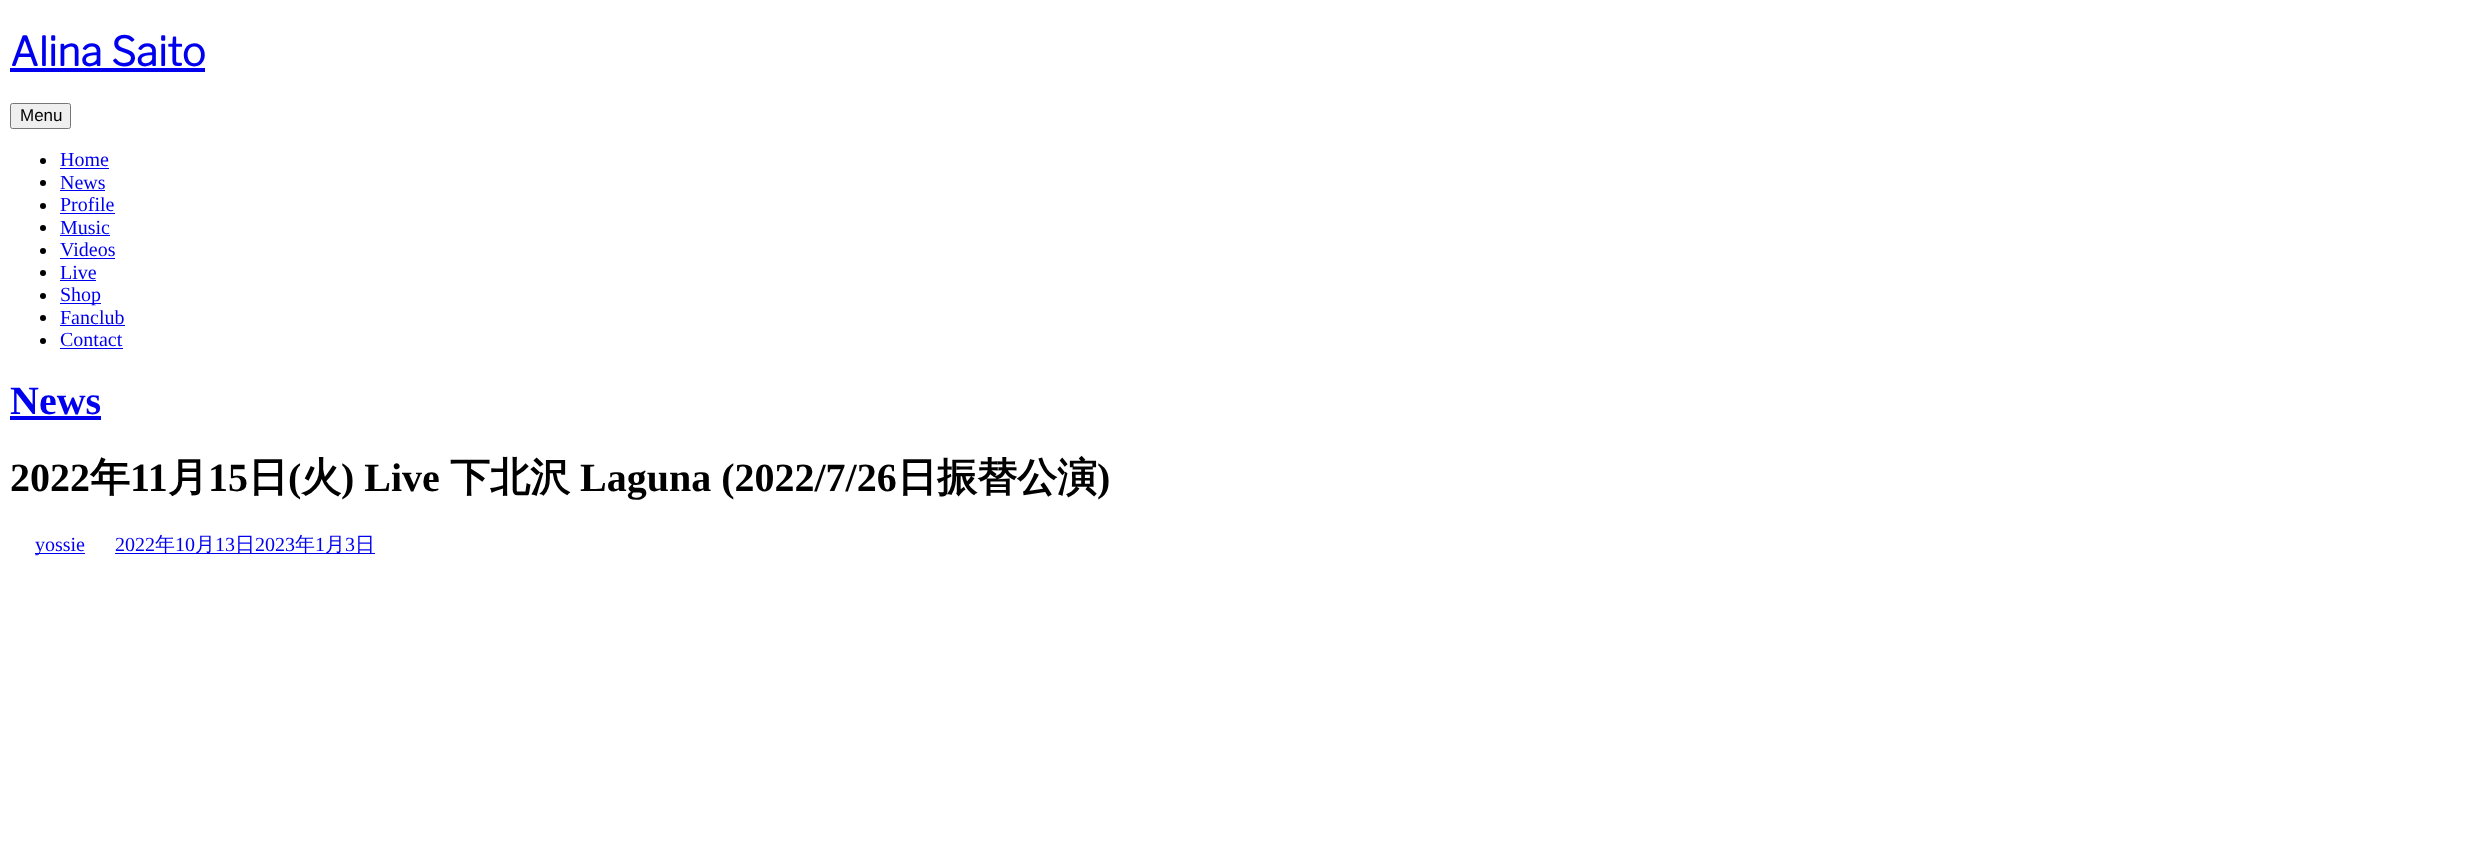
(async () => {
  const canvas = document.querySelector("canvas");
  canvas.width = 2485;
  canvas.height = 857;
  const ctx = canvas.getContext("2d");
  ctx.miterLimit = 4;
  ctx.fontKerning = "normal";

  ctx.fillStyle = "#ffffff";
  ctx.fillRect(0, 0, 2485, 857);
  ctx.fillStyle = "#0000ee";
  ctx.fillRect(10, 68, 195, 4);
  ctx.fillStyle = "#efefef";
  ctx.beginPath();
  ctx.roundRect(10.5, 103.5, 60, 25, 2);
  ctx.fill();
  ctx.strokeStyle = "#767676";
  ctx.stroke();
  ctx.fillStyle = "#000000";
  ctx.beginPath();
  ctx.arc(43, 161, 3, 0, Math.PI * 2);
  ctx.fill();
  ctx.fillStyle = "#0000ee";
  ctx.fillRect(60, 168, 49, 1);
  ctx.fillStyle = "#000000";
  ctx.beginPath();
  ctx.arc(43, 183, 3, 0, Math.PI * 2);
  ctx.fill();
  ctx.fillStyle = "#0000ee";
  ctx.fillRect(60, 190, 45, 1);
  ctx.fillStyle = "#000000";
  ctx.beginPath();
  ctx.arc(43, 206, 3, 0, Math.PI * 2);
  ctx.fill();
  ctx.fillStyle = "#0000ee";
  ctx.fillRect(60, 213, 55, 1);
  ctx.fillStyle = "#000000";
  ctx.beginPath();
  ctx.arc(43, 228, 3, 0, Math.PI * 2);
  ctx.fill();
  ctx.fillStyle = "#0000ee";
  ctx.fillRect(60, 235, 50, 1);
  ctx.fillStyle = "#000000";
  ctx.beginPath();
  ctx.arc(43, 251, 3, 0, Math.PI * 2);
  ctx.fill();
  ctx.fillStyle = "#0000ee";
  ctx.fillRect(60, 258, 55, 1);
  ctx.fillStyle = "#000000";
  ctx.beginPath();
  ctx.arc(43, 273, 3, 0, Math.PI * 2);
  ctx.fill();
  ctx.fillStyle = "#0000ee";
  ctx.fillRect(60, 280, 36, 1);
  ctx.fillStyle = "#000000";
  ctx.beginPath();
  ctx.arc(43, 296, 3, 0, Math.PI * 2);
  ctx.fill();
  ctx.fillStyle = "#0000ee";
  ctx.fillRect(60, 303, 41, 1);
  ctx.fillStyle = "#000000";
  ctx.beginPath();
  ctx.arc(43, 318, 3, 0, Math.PI * 2);
  ctx.fill();
  ctx.fillStyle = "#0000ee";
  ctx.fillRect(60, 325, 65, 1);
  ctx.fillStyle = "#000000";
  ctx.beginPath();
  ctx.arc(43, 341, 3, 0, Math.PI * 2);
  ctx.fill();
  for (const [x, y, w, h, color] of [
    [60, 348, 63, 1, "#0000ee"],
    [10, 416, 91, 4, "#0000ee"],
    [35, 553, 50, 1, "#0000ee"],
    [115, 553, 260, 1, "#0000ee"],
  ]) {
    ctx.fillStyle = color;
    ctx.fillRect(x, y, w, h);
  }
  ctx.font = "bold 40px Libre Franklin";
  ctx.fillText("Alina Saito", 10, 66);
  ctx.font = "17px Liberation Sans";
  ctx.fillStyle = "#000000";
  ctx.fillText("Menu", 20, 121);
  ctx.font = "20px Liberation Serif";
  ctx.fillStyle = "#0000ee";
  for (const [text, x, y] of [
    ["Home", 60, 166],
    ["News", 60, 189],
    ["Profile", 60, 211],
    ["Music", 60, 234],
    ["Videos", 60, 256],
    ["Live", 60, 279],
    ["Shop", 60, 301],
    ["Fanclub", 60, 324],
    ["Contact", 60, 346],
  ]) {
    ctx.fillText(text, x, y);
  }
  ctx.font = "bold 40px Liberation Serif";
  ctx.fillText("News", 10, 414);
  ctx.fillStyle = "#000000";
  ctx.fillText("2022", 10, 491);
  ctx.font = "bold 40px WenQuanYi Zen Hei";
  ctx.fillText("年", 90, 491);
  ctx.font = "bold 40px Liberation Serif";
  ctx.fillText("11", 130, 491);
  ctx.font = "bold 40px WenQuanYi Zen Hei";
  ctx.fillText("月", 168, 491);
  ctx.font = "bold 40px Liberation Serif";
  ctx.fillText("15", 208, 491);
  ctx.font = "bold 40px WenQuanYi Zen Hei";
  ctx.fillText("日", 248, 491);
  ctx.font = "bold 40px Liberation Serif";
  ctx.fillText("(", 288, 491);
  ctx.font = "bold 40px WenQuanYi Zen Hei";
  ctx.fillText("火", 301, 491);
  ctx.font = "bold 40px Liberation Serif";
  ctx.fillText(") Live", 341, 491);
  ctx.font = "bold 40px WenQuanYi Zen Hei";
  ctx.fillText("下北沢", 450, 491);
  ctx.font = "bold 40px Liberation Serif";
  ctx.fillText("Laguna (2022/7/26", 580, 491);
  ctx.font = "bold 40px WenQuanYi Zen Hei";
  ctx.fillText("日振替公演", 897, 491);
  ctx.font = "bold 40px Liberation Serif";
  ctx.fillText(")", 1097, 491);
  ctx.font = "20px Liberation Serif";
  ctx.fillStyle = "#0000ee";
  ctx.fillText("yossie", 35, 551);
  ctx.fillText("2022", 115, 551);
  ctx.font = "500 20px WenQuanYi Zen Hei";
  ctx.fillText("年", 155, 551);
  ctx.font = "20px Liberation Serif";
  ctx.fillText("10", 175, 551);
  ctx.font = "500 20px WenQuanYi Zen Hei";
  ctx.fillText("月", 195, 551);
  ctx.font = "20px Liberation Serif";
  ctx.fillText("13", 215, 551);
  ctx.font = "500 20px WenQuanYi Zen Hei";
  ctx.fillText("日", 235, 551);
  ctx.font = "20px Liberation Serif";
  ctx.fillText("2023", 255, 551);
  ctx.font = "500 20px WenQuanYi Zen Hei";
  ctx.fillText("年", 295, 551);
  ctx.font = "20px Liberation Serif";
  ctx.fillText("1", 315, 551);
  ctx.font = "500 20px WenQuanYi Zen Hei";
  ctx.fillText("月", 325, 551);
  ctx.font = "20px Liberation Serif";
  ctx.fillText("3", 345, 551);
  ctx.font = "500 20px WenQuanYi Zen Hei";
  ctx.fillText("日", 355, 551);
})();
